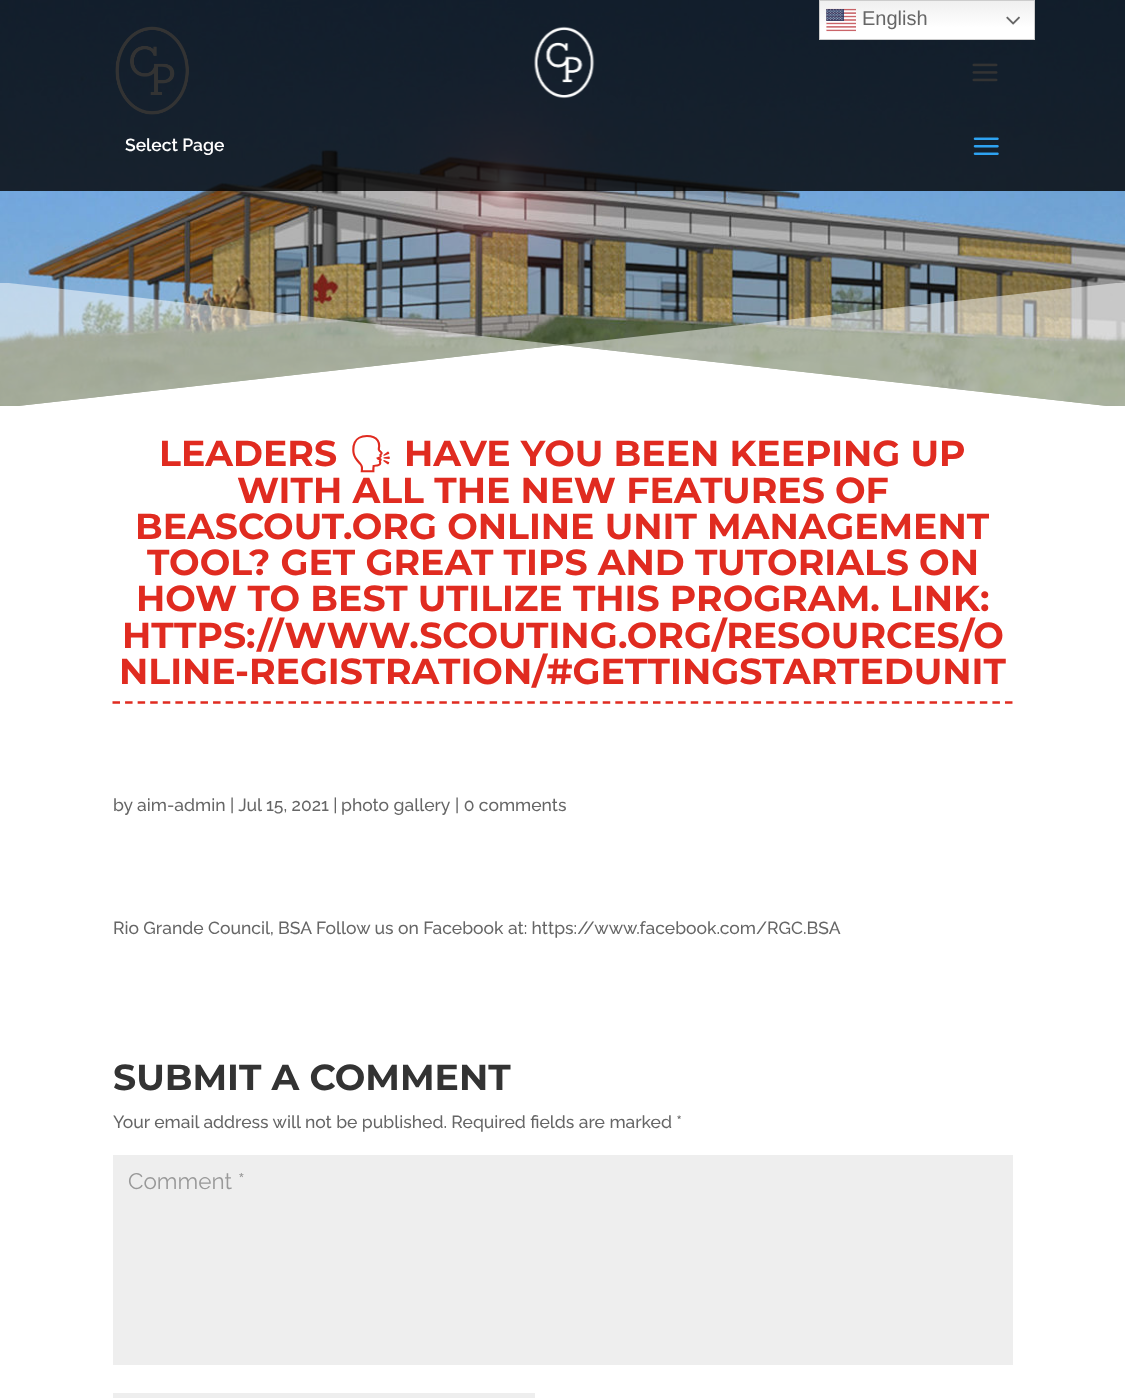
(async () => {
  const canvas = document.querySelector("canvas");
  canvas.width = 1125;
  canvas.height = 1398;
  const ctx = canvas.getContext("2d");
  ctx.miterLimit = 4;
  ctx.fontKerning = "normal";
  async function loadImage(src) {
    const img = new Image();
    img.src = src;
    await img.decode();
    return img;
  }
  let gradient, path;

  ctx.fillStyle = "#ffffff";
  ctx.fillRect(0, 0, 1125, 1398);
  ctx.drawImage(await loadImage("img/5.png"), 0, 0, 1125, 406);
  ctx.drawImage(await loadImage("img/6.png"), 115, 26, 74, 89);
  ctx.drawImage(await loadImage("img/7.png"), 972, 63, 26, 19);
  ctx.fillStyle = "rgba(0, 0, 0, 0.8)";
  ctx.fillRect(0, 0, 1125, 191);
  gradient = ctx.createLinearGradient(927, 0, 927, 40);
  gradient.addColorStop(0, "#efefef");
  gradient.addColorStop(0.7, "#ffffff");
  ctx.fillStyle = gradient;
  ctx.fillRect(820, 1, 214, 38);
  ctx.strokeStyle = "#cccccc";
  ctx.strokeRect(819.5, 0.5, 215, 39);
  ctx.drawImage(await loadImage("img/1.png"), 826, 8, 30, 24);
  ctx.drawImage(await loadImage("img/2.png"), 1006, 16, 14, 9);
  ctx.drawImage(await loadImage("img/3.png"), 534, 26, 61, 73);
  ctx.drawImage(await loadImage("img/4.png"), 973, 137, 26, 18);
  ctx.save();
  ctx.beginPath();
  ctx.rect(0, 283, 1125, 125);
  ctx.clip();
  ctx.fillStyle = "rgba(255, 255, 255, 0.5)";
  path = new Path2D("M0 408L562 345L1125 408V282L562 345L0 282Z");
  ctx.fill(path);
  ctx.restore();
  ctx.fillStyle = "#ffffff";
  path = new Path2D("M0 408H1125L562 345Z");
  ctx.fill(path);
  path = new Path2D("M112.5 702.5H1012.5");
  ctx.strokeStyle = "#e02b20";
  ctx.lineWidth = 2.5;
  ctx.setLineDash([7.5, 5.07]);
  ctx.stroke(path);
  ctx.fillStyle = "#eeeeee";
  ctx.fillRect(113, 1155, 900, 210);
  ctx.fillRect(113, 1393, 422, 5);
  ctx.font = "20px Liberation Sans";
  ctx.fillStyle = "#666666";
  ctx.fillText("English", 862, 25);
  ctx.font = "100 17.5px 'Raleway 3'";
  ctx.fillStyle = "#ffffff";
  ctx.fillText("Select Page", 125, 151);
  ctx.font = "100 36.25px Montserrat";
  ctx.fillStyle = "#e02b20";
  ctx.fillText("LEADERS", 159, 466);
  ctx.font = "bold 36.25px Noto Emoji";
  ctx.fillText("🗣", 348, 466);
  ctx.font = "100 36.25px Montserrat";
  for (const [text, x, y] of [
    ["HAVE YOU BEEN KEEPING UP", 404, 466],
    ["WITH ALL THE NEW FEATURES OF", 237, 503],
    ["BEASCOUT.ORG ONLINE UNIT MANAGEMENT", 135, 539],
    ["TOOL? GET GREAT TIPS AND TUTORIALS ON", 147, 575],
    ["HOW TO BEST UTILIZE THIS PROGRAM. LINK:", 136, 611],
    ["HTTPS://WWW.SCOUTING.ORG/RESOURCES/O", 122, 648],
    ["NLINE-REGISTRATION/#GETTINGSTARTEDUNIT", 119, 684],
  ]) {
    ctx.fillText(text, x, y);
  }
  ctx.font = "100 17.5px Raleway";
  ctx.fillStyle = "#666666";
  for (const [text, x, y] of [
    ["by aim-admin | Jul 15, 2021 |", 113, 811],
    ["photo gallery", 341, 811],
    ["| 0 comments", 455, 811],
    ["Rio Grande Council, BSA Follow us on Facebook at: https://www.facebook.com/RGC.BSA", 113, 934],
  ]) {
    ctx.fillText(text, x, y);
  }
  ctx.font = "100 36.25px Montserrat";
  ctx.fillStyle = "#333333";
  ctx.fillText("SUBMIT A COMMENT", 113, 1090);
  ctx.font = "100 17.5px Raleway";
  ctx.fillStyle = "#666666";
  ctx.fillText("Your email address will not be published. Required fields are marked *", 113, 1128);
  ctx.font = "100 22.5px 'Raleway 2'";
  ctx.fillStyle = "#999999";
  ctx.fillText("Comment *", 128, 1189);
})();
